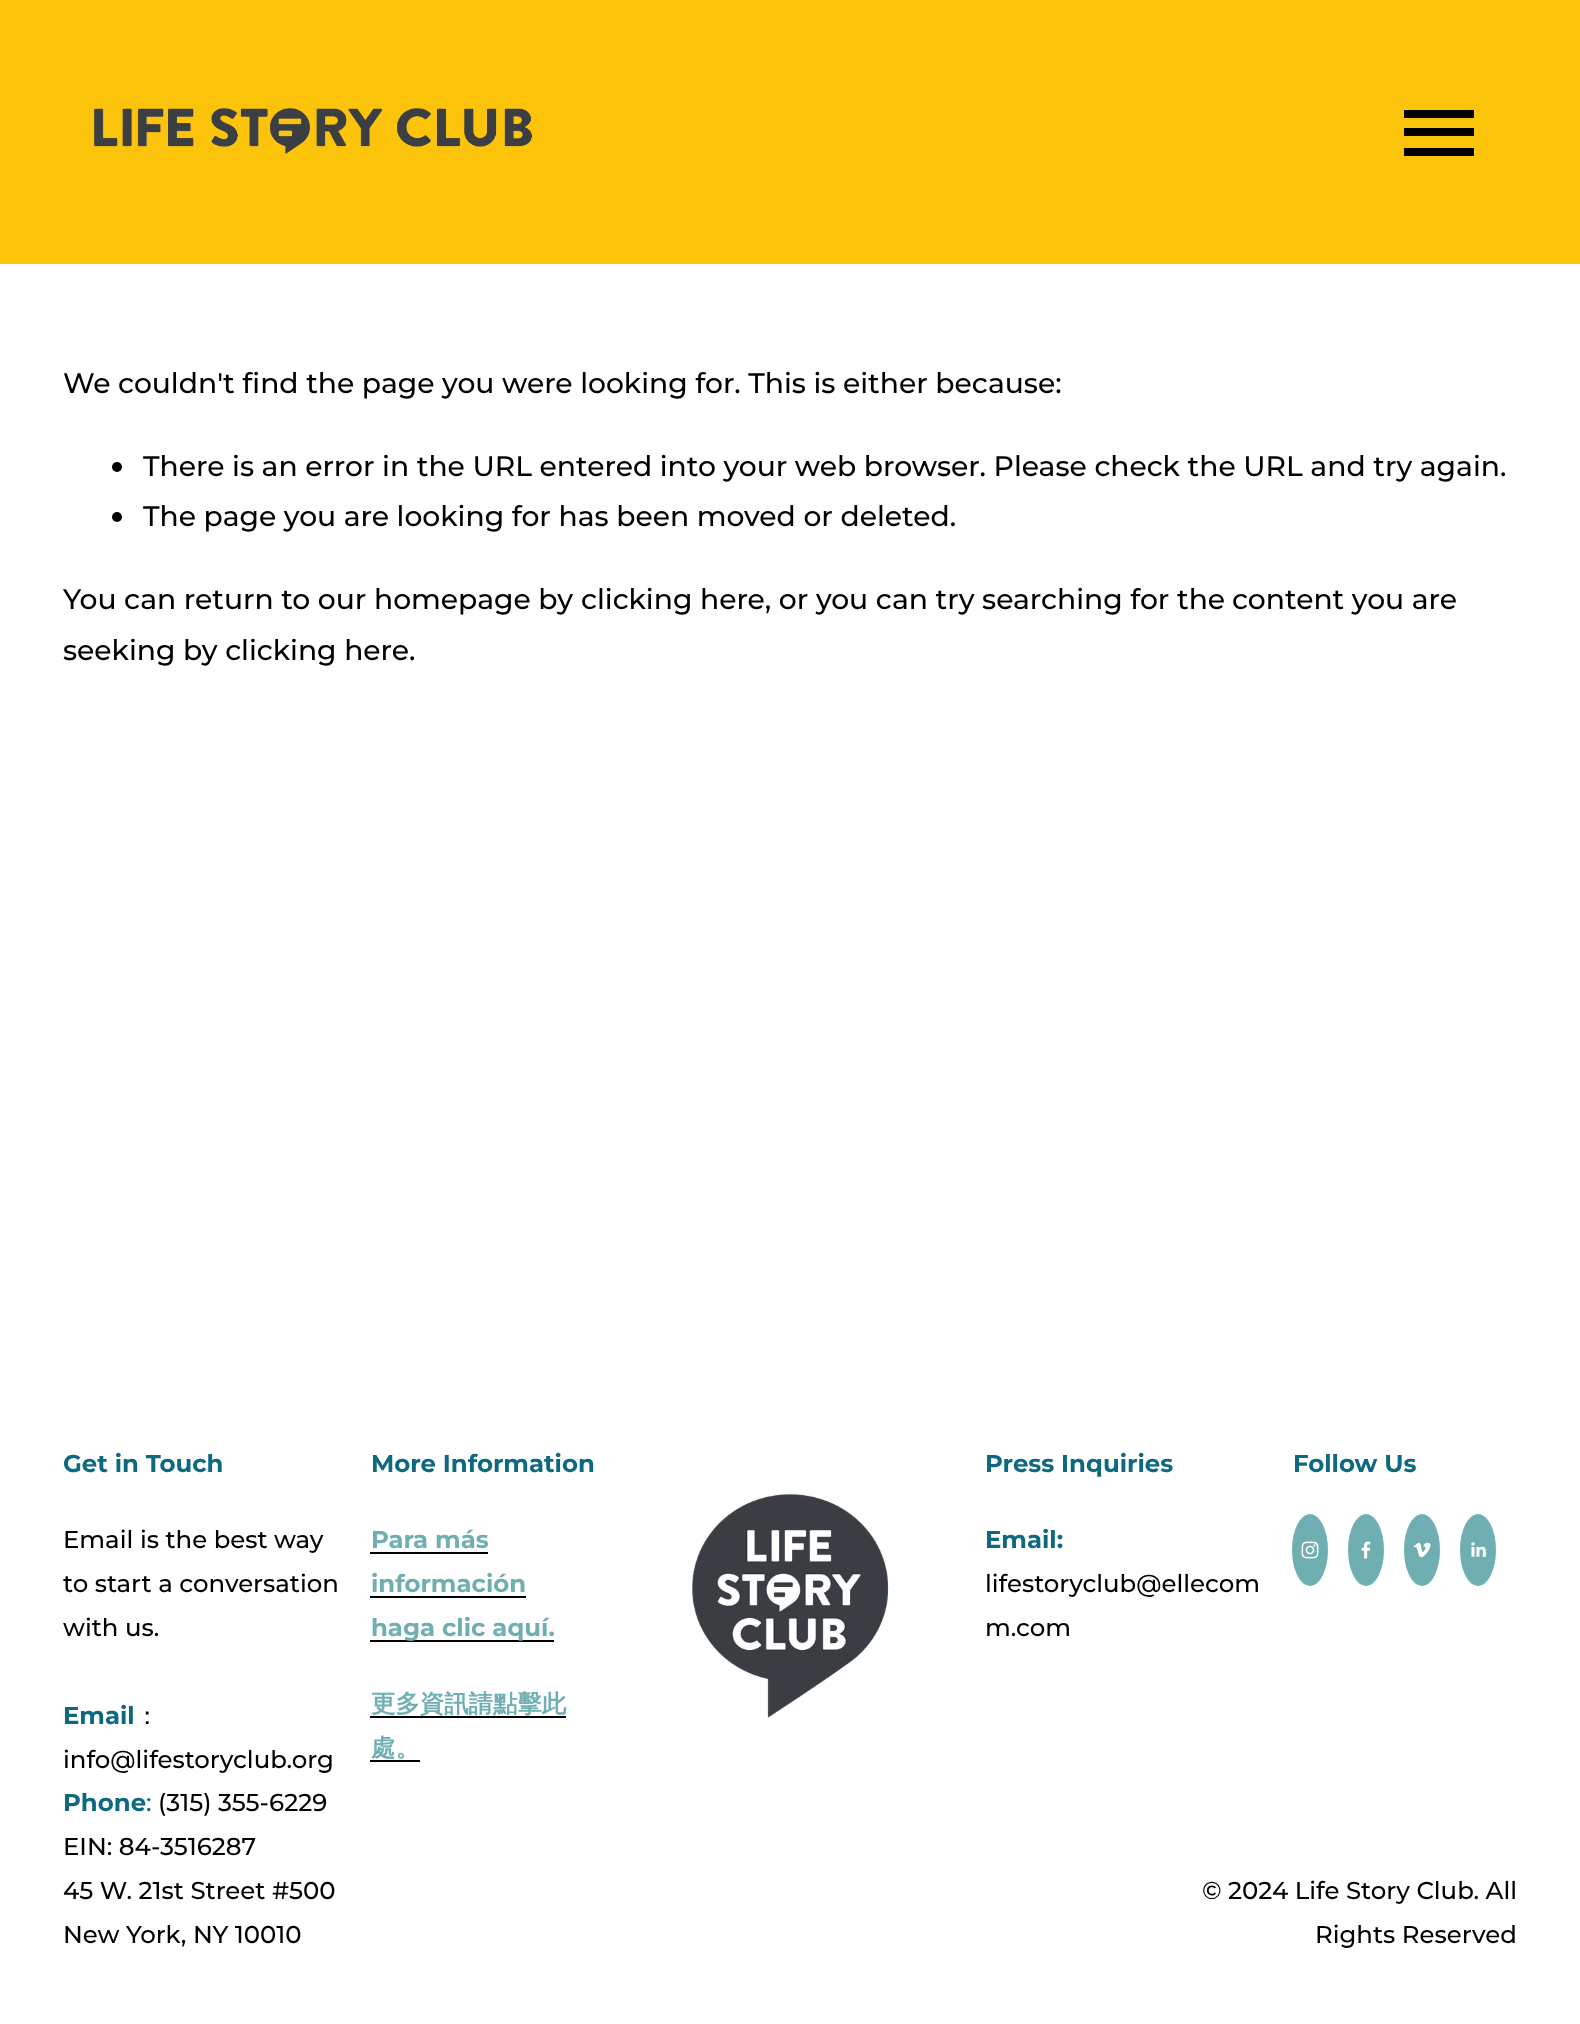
(async () => {
  const canvas = document.querySelector("canvas");
  canvas.width = 1580;
  canvas.height = 2024;
  const ctx = canvas.getContext("2d");
  ctx.miterLimit = 4;
  ctx.fontKerning = "normal";
  async function loadImage(src) {
    const img = new Image();
    img.src = src;
    await img.decode();
    return img;
  }

  ctx.fillStyle = "#ffffff";
  ctx.fillRect(0, 0, 1580, 2024);
  ctx.fillStyle = "#fcc30b";
  ctx.fillRect(0, 0, 1580, 264);
  ctx.drawImage(await loadImage("img/1.png"), 94, 108, 438, 46);
  for (const [x, y, w, h, color] of [
    [1404, 110, 70, 8, "#000000"],
    [1404, 128, 70, 8, "#000000"],
    [1404, 148, 70, 8, "#000000"],
  ]) {
    ctx.fillStyle = color;
    ctx.fillRect(x, y, w, h);
  }
  ctx.beginPath();
  ctx.arc(117, 467, 5, 0, Math.PI * 2);
  ctx.fill();
  ctx.beginPath();
  ctx.arc(117, 517, 5, 0, Math.PI * 2);
  ctx.fill();
  for (const [x, y, w, h, color] of [
    [370, 1552, 118, 2, "#000000"],
    [370, 1596, 156, 2, "#000000"],
    [370, 1640, 184, 2, "#000000"],
    [370, 1716, 196, 2, "#000000"],
    [370, 1760, 50, 2, "#000000"],
  ]) {
    ctx.fillStyle = color;
    ctx.fillRect(x, y, w, h);
  }
  ctx.drawImage(await loadImage("img/2.png"), 692, 1494, 197, 224);
  ctx.fillStyle = "#6fafb2";
  ctx.beginPath();
  ctx.ellipse(1310, 1550, 18, 36, 0, 0, Math.PI * 2);
  ctx.fill();
  ctx.drawImage(await loadImage("img/3.png"), 1301, 1541, 18, 18);
  ctx.beginPath();
  ctx.ellipse(1366, 1550, 18, 36, 0, 0, Math.PI * 2);
  ctx.fill();
  ctx.drawImage(await loadImage("img/4.png"), 1361, 1541, 10, 18);
  ctx.beginPath();
  ctx.ellipse(1422, 1550, 18, 36, 0, 0, Math.PI * 2);
  ctx.fill();
  ctx.drawImage(await loadImage("img/5.png"), 1413, 1542, 18, 16);
  ctx.beginPath();
  ctx.ellipse(1478, 1550, 18, 36, 0, 0, Math.PI * 2);
  ctx.fill();
  ctx.drawImage(await loadImage("img/6.png"), 1471, 1542, 15, 15);
  ctx.font = "500 28.2px Montserrat";
  ctx.fillStyle = "#000000";
  for (const [text, x, y] of [
    ["We couldn't find the page you were looking for. This is either because:", 63, 393],
    ["There is an error in the URL entered into your web browser. Please check the URL and try again.", 143, 476],
    ["The page you are looking for has been moved or deleted.", 143, 526],
    ["You can return to our homepage by", 63, 609],
    ["clicking here, or you can try searching for the", 581, 609],
    ["content you are", 1232, 609],
    ["seeking by clicking here.", 63, 660],
  ]) {
    ctx.fillText(text, x, y);
  }
  ctx.font = "bold 24.4px Montserrat";
  ctx.fillStyle = "#0c6980";
  ctx.fillText("Get in Touch", 63, 1472);
  ctx.font = "500 24.4px Montserrat";
  ctx.fillStyle = "#000000";
  for (const [text, x, y] of [
    ["Email is the best way", 63, 1548],
    ["to start a conversation", 63, 1592],
    ["with us.", 63, 1636],
  ]) {
    ctx.fillText(text, x, y);
  }
  ctx.font = "bold 24.4px Montserrat";
  ctx.fillStyle = "#0c6980";
  ctx.fillText("Email", 63, 1724);
  ctx.font = "500 24.4px WenQuanYi Zen Hei";
  ctx.fillStyle = "#000000";
  ctx.fillText("：", 135, 1724);
  ctx.font = "500 24.4px Montserrat";
  ctx.fillText("info@lifestoryclub.org", 63, 1768);
  ctx.font = "bold 24.4px Montserrat";
  ctx.fillStyle = "#0c6980";
  ctx.fillText("Phone", 63, 1811);
  ctx.font = "500 24.4px Montserrat";
  ctx.fillText(":", 146, 1811);
  ctx.fillStyle = "#000000";
  for (const [text, x, y] of [
    ["(315) 355-6229", 158, 1811],
    ["EIN: 84-3516287", 63, 1855],
    ["45 W. 21st Street #500", 63, 1899],
    ["New York, NY 10010", 63, 1943],
  ]) {
    ctx.fillText(text, x, y);
  }
  ctx.font = "bold 24.4px Montserrat";
  ctx.fillStyle = "#0c6980";
  ctx.fillText("More Information", 371, 1472);
  ctx.fillStyle = "#6fafb2";
  for (const [text, x, y] of [
    ["Para más", 371, 1548],
    ["información", 371, 1592],
    ["haga clic aquí.", 371, 1636],
  ]) {
    ctx.fillText(text, x, y);
  }
  ctx.font = "bold 24.4px WenQuanYi Zen Hei";
  ctx.fillText("更多資訊請點擊此", 371, 1712);
  ctx.fillText("處。", 371, 1756);
  ctx.font = "bold 24.4px Montserrat";
  ctx.fillStyle = "#0c6980";
  ctx.fillText("Press Inquiries", 985, 1472);
  ctx.fillText("Email:", 985, 1548);
  ctx.font = "500 24.4px Montserrat";
  ctx.fillStyle = "#000000";
  ctx.fillText("lifestoryclub@ellecom", 985, 1592);
  ctx.fillText("m.com", 985, 1636);
  ctx.font = "bold 24.4px Montserrat";
  ctx.fillStyle = "#0c6980";
  ctx.fillText("Follow Us", 1293, 1472);
  ctx.font = "500 24.4px Montserrat";
  ctx.fillStyle = "#000000";
  ctx.fillText("© 2024 Life Story Club. All", 1202, 1899);
  ctx.fillText("Rights Reserved", 1315, 1943);
})();
